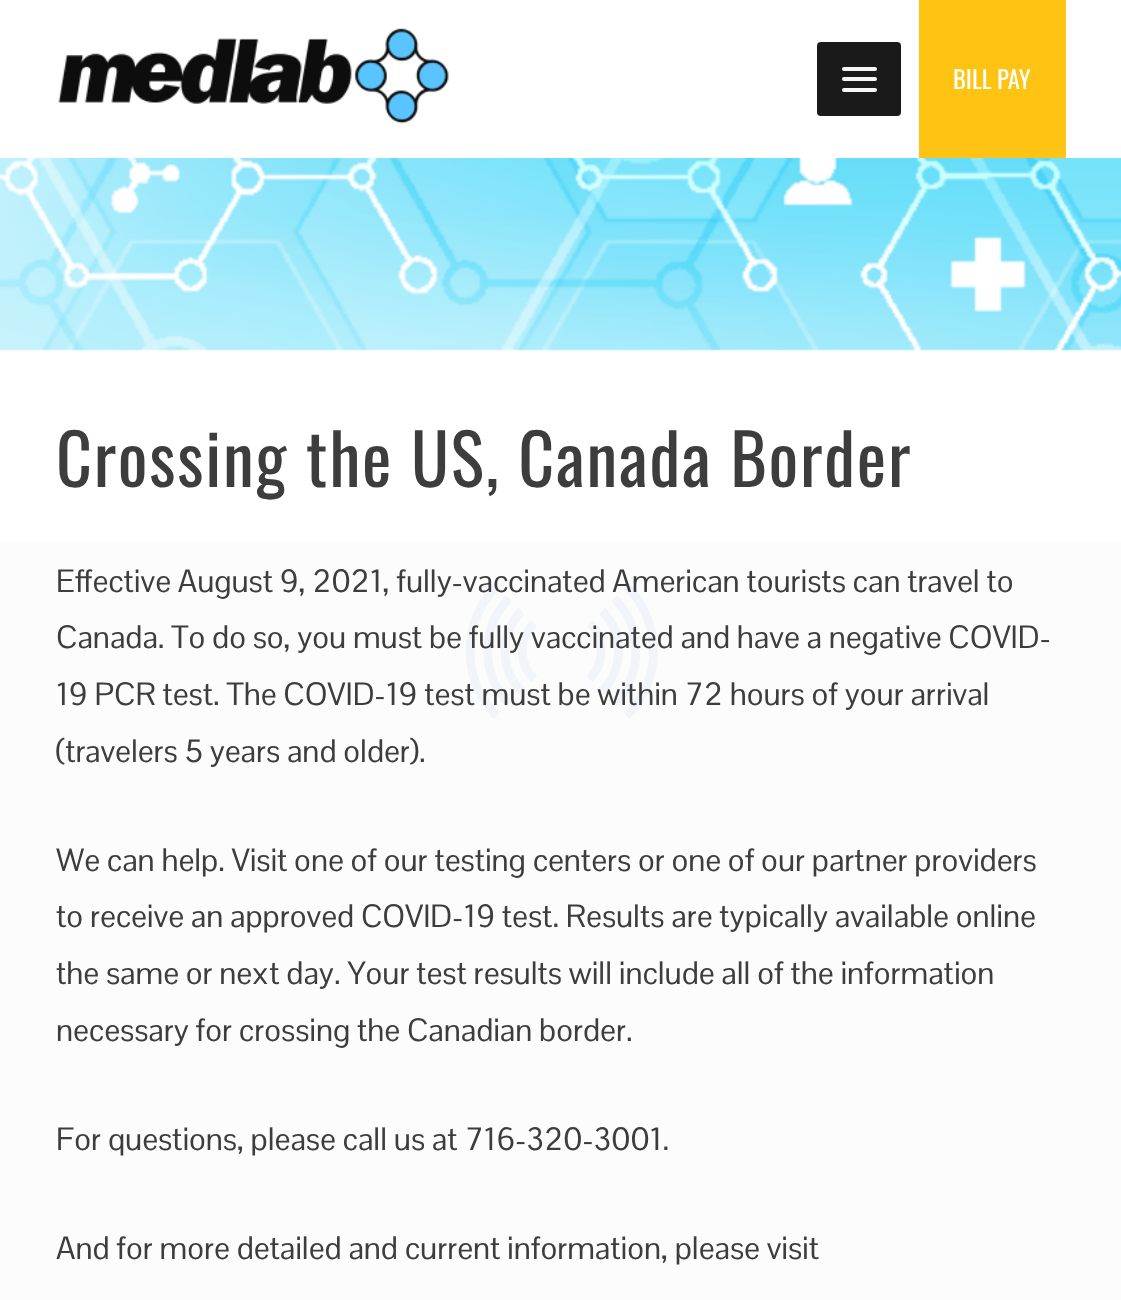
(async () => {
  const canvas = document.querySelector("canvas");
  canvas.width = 1121;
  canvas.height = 1300;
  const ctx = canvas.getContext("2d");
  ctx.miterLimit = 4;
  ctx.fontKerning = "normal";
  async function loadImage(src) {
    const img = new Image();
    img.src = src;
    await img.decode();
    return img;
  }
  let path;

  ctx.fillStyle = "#fcfcfc";
  ctx.fillRect(0, 0, 1121, 1300);
  ctx.fillStyle = "#ffffff";
  ctx.fillRect(0, 0, 1121, 158);
  ctx.drawImage(await loadImage("img/1.png"), 58, 28, 391, 96);
  ctx.fillStyle = "#1a1a1a";
  ctx.beginPath();
  ctx.roundRect(817, 42, 84, 74, 4);
  ctx.fill();
  ctx.fillStyle = "#f6f6f6";
  ctx.beginPath();
  ctx.roundRect(842, 67, 35, 4, 2);
  ctx.fill();
  ctx.beginPath();
  ctx.roundRect(842, 77, 35, 4, 2);
  ctx.fill();
  ctx.beginPath();
  ctx.roundRect(842, 88, 35, 4, 2);
  ctx.fill();
  ctx.fillStyle = "#ffc413";
  ctx.fillRect(919, 0, 147, 158);
  ctx.fillStyle = "#ffffff";
  ctx.fillRect(0, 349, 1121, 194);
  ctx.drawImage(await loadImage("img/2.png"), 0, 158, 1121, 193);
  path = new Path2D("M626.5 586C662.5 621.5 662.5 680.5 626.5 716");
  ctx.strokeStyle = "rgba(30, 115, 190, 0.05)";
  ctx.lineWidth = 8.8;
  ctx.stroke(path);
  path = new Path2D("M497 716C461 680.5 461 621.5 497 586");
  ctx.stroke(path);
  path = new Path2D("M614.5 598.5C643 627.5 643 674.5 614.5 703.5");
  ctx.stroke(path);
  path = new Path2D("M509 703.5C480.5 674.5 480.5 627.5 509 598.5");
  ctx.stroke(path);
  path = new Path2D("M602 611C624 632.5 624 669.5 602 691");
  ctx.stroke(path);
  path = new Path2D("M521.5 691C499.5 669.5 499.5 632.5 521.5 611");
  ctx.stroke(path);
  path = new Path2D("M589.5 623C605 638.5 605 663.5 589.5 679");
  ctx.stroke(path);
  path = new Path2D("M534 679C518.5 663.5 518.5 638.5 534 623");
  ctx.stroke(path);
  ctx.font = "24.5px Oswald";
  ctx.fillText("BILL PAY", 953, 89);
  ctx.letterSpacing = "1.75px";
  ctx.font = "70px Oswald";
  ctx.fillStyle = "#3d3d3d";
  ctx.fillText("Crossing the US, Canada Border", 56, 487);
  ctx.letterSpacing = "0px";
  ctx.font = "31.5px Pontano Sans";
  for (const [text, x, y] of [
    ["Effective August 9, 2021, fully-vaccinated American tourists can travel to", 56, 592],
    ["Canada. To do so, you must be fully vaccinated and have a negative COVID-", 56, 648],
    ["19 PCR test. The COVID-19 test must be within 72 hours of your arrival", 56, 705],
    ["(travelers 5 years and older).", 56, 762],
    ["We can help. Visit one of our testing centers or one of our partner providers", 56, 871],
    ["to receive an approved COVID-19 test. Results are typically available online", 56, 927],
    ["the same or next day. Your test results will include all of the information", 56, 984],
    ["necessary for crossing the Canadian border.", 56, 1041],
    ["For questions, please call us at 716-320-3001.", 56, 1150],
    ["And for more detailed and current information, please visit", 56, 1259],
  ]) {
    ctx.fillText(text, x, y);
  }
})();
